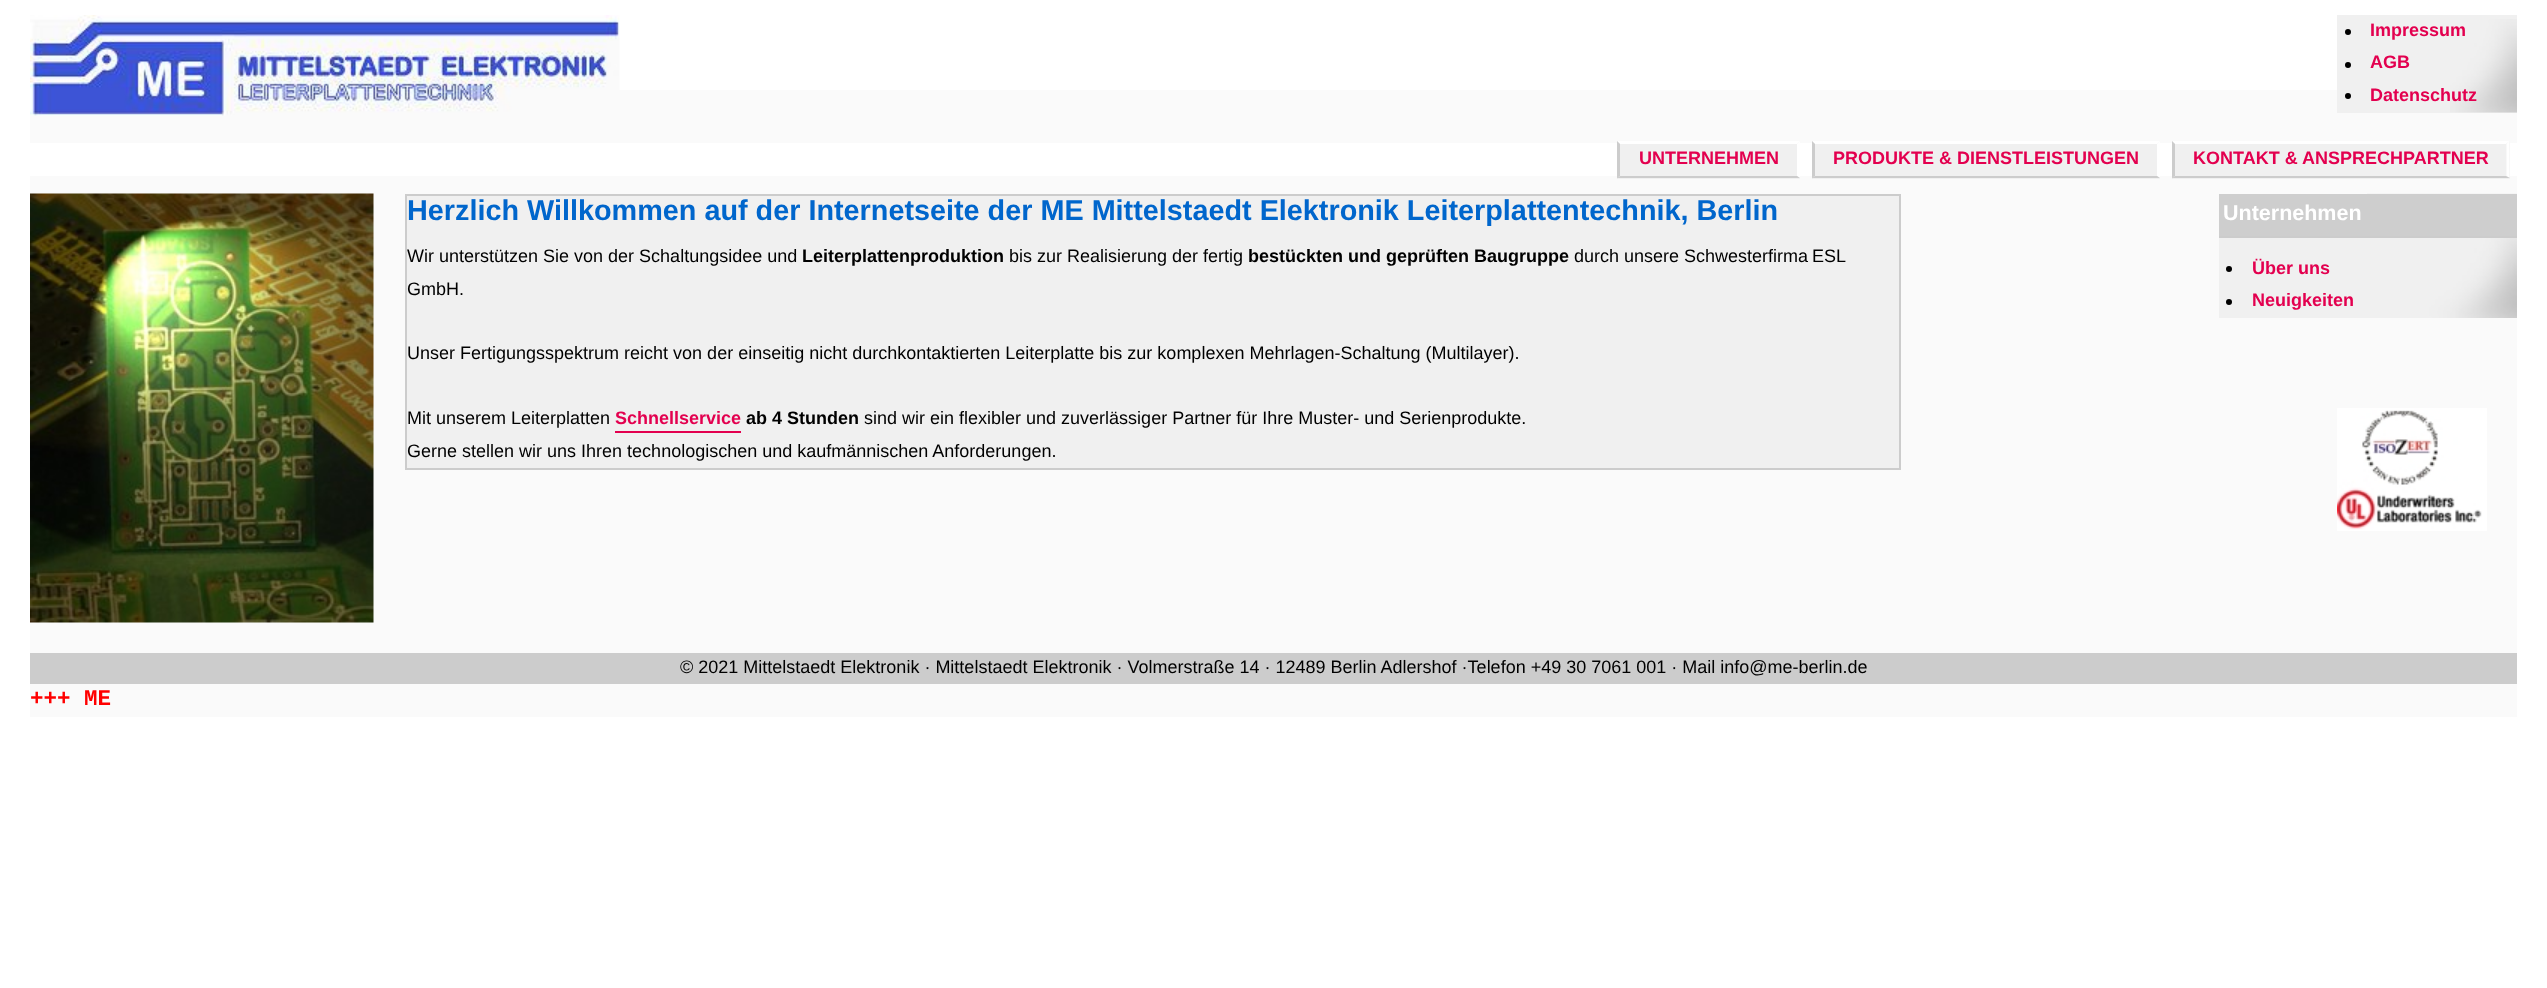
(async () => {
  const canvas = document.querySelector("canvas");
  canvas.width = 2547;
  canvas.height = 988;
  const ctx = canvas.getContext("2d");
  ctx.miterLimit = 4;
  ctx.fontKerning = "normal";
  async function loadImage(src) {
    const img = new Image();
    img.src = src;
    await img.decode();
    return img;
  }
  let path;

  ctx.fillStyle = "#ffffff";
  ctx.fillRect(0, 0, 2547, 988);
  ctx.fillStyle = "#fafafa";
  ctx.fillRect(30, 90, 2487, 627);
  ctx.drawImage(await loadImage("img/1.png"), 30, 15, 590, 101);
  ctx.fillStyle = "#f0f0f0";
  ctx.fillRect(2337, 15, 180, 98);
  ctx.drawImage(await loadImage("img/2.png"), 2450, 19, 67, 94);
  ctx.fillStyle = "#000000";
  ctx.beginPath();
  ctx.arc(2348, 32, 3, 0, Math.PI * 2);
  ctx.fill();
  ctx.beginPath();
  ctx.arc(2348, 65, 3, 0, Math.PI * 2);
  ctx.fill();
  ctx.beginPath();
  ctx.arc(2348, 96, 3, 0, Math.PI * 2);
  ctx.fill();
  ctx.fillStyle = "#ffffff";
  ctx.fillRect(30, 143, 2487, 33);
  ctx.fillStyle = "#f0f0f0";
  ctx.fillRect(1617, 141, 183, 38);
  ctx.fillStyle = "#ffffff";
  path = new Path2D("M1617 141H1800L1797 144H1620Z");
  ctx.fill(path);
  path = new Path2D("M1800 141V178.5L1797 175.5V144Z");
  ctx.fill(path);
  ctx.fillStyle = "#cccccc";
  path = new Path2D("M1800 178H1617L1620 176H1797Z");
  ctx.fill(path);
  path = new Path2D("M1617 178.5V141L1620 144V175.5Z");
  ctx.fill(path);
  ctx.fillStyle = "#f0f0f0";
  ctx.fillRect(1812, 141, 348, 38);
  ctx.fillStyle = "#ffffff";
  path = new Path2D("M1812 141H2160L2157 144H1815Z");
  ctx.fill(path);
  path = new Path2D("M2160 141V178.5L2157 175.5V144Z");
  ctx.fill(path);
  ctx.fillStyle = "#cccccc";
  path = new Path2D("M2160 178H1812L1815 176H2157Z");
  ctx.fill(path);
  path = new Path2D("M1812 178.5V141L1815 144V175.5Z");
  ctx.fill(path);
  ctx.fillStyle = "#f0f0f0";
  ctx.fillRect(2172, 141, 338, 38);
  ctx.fillStyle = "#ffffff";
  path = new Path2D("M2172 141H2510L2506 144H2175Z");
  ctx.fill(path);
  path = new Path2D("M2509.5 141V178.5L2506.5 175.5V144Z");
  ctx.fill(path);
  ctx.fillStyle = "#cccccc";
  path = new Path2D("M2510 178H2172L2175 176H2506Z");
  ctx.fill(path);
  path = new Path2D("M2172 178.5V141L2175 144V175.5Z");
  ctx.fill(path);
  ctx.drawImage(await loadImage("img/3.png"), 30, 193, 344, 430);
  ctx.fillStyle = "#f0f0f0";
  ctx.beginPath();
  ctx.rect(406, 195, 1494, 274);
  ctx.fill();
  ctx.strokeStyle = "#cccccc";
  ctx.lineWidth = 2;
  ctx.stroke();
  ctx.fillStyle = "#e3004f";
  ctx.fillRect(615, 431, 126, 2);
  ctx.fillStyle = "#f0f0f0";
  ctx.fillRect(2219, 238, 148, 80);
  ctx.drawImage(await loadImage("img/4.png"), 2367, 193, 150, 125);
  ctx.fillStyle = "#cecece";
  ctx.fillRect(2219, 194, 298, 42);
  ctx.fillStyle = "#cccccc";
  ctx.fillRect(2219, 236, 298, 2);
  ctx.fillStyle = "#000000";
  ctx.beginPath();
  ctx.arc(2229, 269, 3, 0, Math.PI * 2);
  ctx.fill();
  ctx.beginPath();
  ctx.arc(2229, 302, 3, 0, Math.PI * 2);
  ctx.fill();
  ctx.drawImage(await loadImage("img/5.png"), 2337, 408, 150, 123);
  ctx.fillStyle = "#cccccc";
  ctx.fillRect(30, 653, 2487, 31);
  ctx.font = "bold 18px Liberation Sans";
  ctx.fillStyle = "#e3004f";
  for (const [text, x, y] of [
    ["Impressum", 2370, 36],
    ["AGB", 2370, 68],
    ["Datenschutz", 2370, 101],
    ["UNTERNEHMEN", 1639, 164],
    ["PRODUKTE & DIENSTLEISTUNGEN", 1833, 164],
    ["KONTAKT & ANSPRECHPARTNER", 2193, 164],
  ]) {
    ctx.fillText(text, x, y);
  }
  ctx.font = "bold 28.8px Liberation Sans";
  ctx.fillStyle = "#0066cc";
  ctx.fillText("Herzlich Willkommen auf der Internetseite der ME Mittelstaedt Elektronik Leiterplattentechnik, Berlin", 407, 220);
  ctx.font = "18px Liberation Sans";
  ctx.fillStyle = "#000000";
  ctx.fillText("Wir unterstützen Sie von der Schaltungsidee und", 407, 262);
  ctx.font = "bold 18px Liberation Sans";
  ctx.fillText("Leiterplattenproduktion", 802, 262);
  ctx.font = "18px Liberation Sans";
  ctx.fillText("bis zur Realisierung der fertig", 1009, 262);
  ctx.font = "bold 18px Liberation Sans";
  ctx.fillText("bestückten und geprüften Baugruppe", 1248, 262);
  ctx.font = "18px Liberation Sans";
  ctx.fillText("durch unsere", 1574, 262);
  ctx.wordSpacing = "-1px";
  ctx.fillText("Schwesterfirma ESL", 1684, 262);
  ctx.wordSpacing = "0px";
  for (const [text, x, y] of [
    ["GmbH.", 407, 295],
    ["Unser Fertigungsspektrum reicht von der einseitig nicht durchkontaktierten Leiterplatte bis zur komplexen Mehrlagen-Schaltung (Multilayer).", 407, 359],
    ["Mit unserem Leiterplatten", 407, 424],
  ]) {
    ctx.fillText(text, x, y);
  }
  ctx.font = "bold 18px Liberation Sans";
  ctx.fillStyle = "#e3004f";
  ctx.fillText("Schnellservice", 615, 424);
  ctx.fillStyle = "#000000";
  ctx.fillText("ab 4 Stunden", 746, 424);
  ctx.font = "18px Liberation Sans";
  ctx.fillText("sind wir ein flexibler und zuverlässiger Partner für Ihre Muster- und Serienprodukte.", 864, 424);
  ctx.fillText("Gerne stellen wir uns Ihren technologischen und kaufmännischen Anforderungen.", 407, 457);
  ctx.font = "bold 21.5px Liberation Sans";
  ctx.fillStyle = "#ffffff";
  ctx.fillText("Unternehmen", 2223, 220);
  ctx.font = "bold 18px Liberation Sans";
  ctx.fillStyle = "#e3004f";
  ctx.fillText("Über uns", 2252, 274);
  ctx.fillText("Neuigkeiten", 2252, 306);
  ctx.font = "18px Liberation Sans";
  ctx.fillStyle = "#000000";
  ctx.fillText("© 2021 Mittelstaedt Elektronik · Mittelstaedt Elektronik · Volmerstraße 14 · 12489 Berlin Adlershof ·Telefon +49 30 7061 001 · Mail info@me-berlin.de", 680, 673);
  ctx.font = "bold 22.5px Liberation Mono";
  ctx.fillStyle = "#ff0000";
  ctx.fillText("+++ ME", 30, 705);
})();
